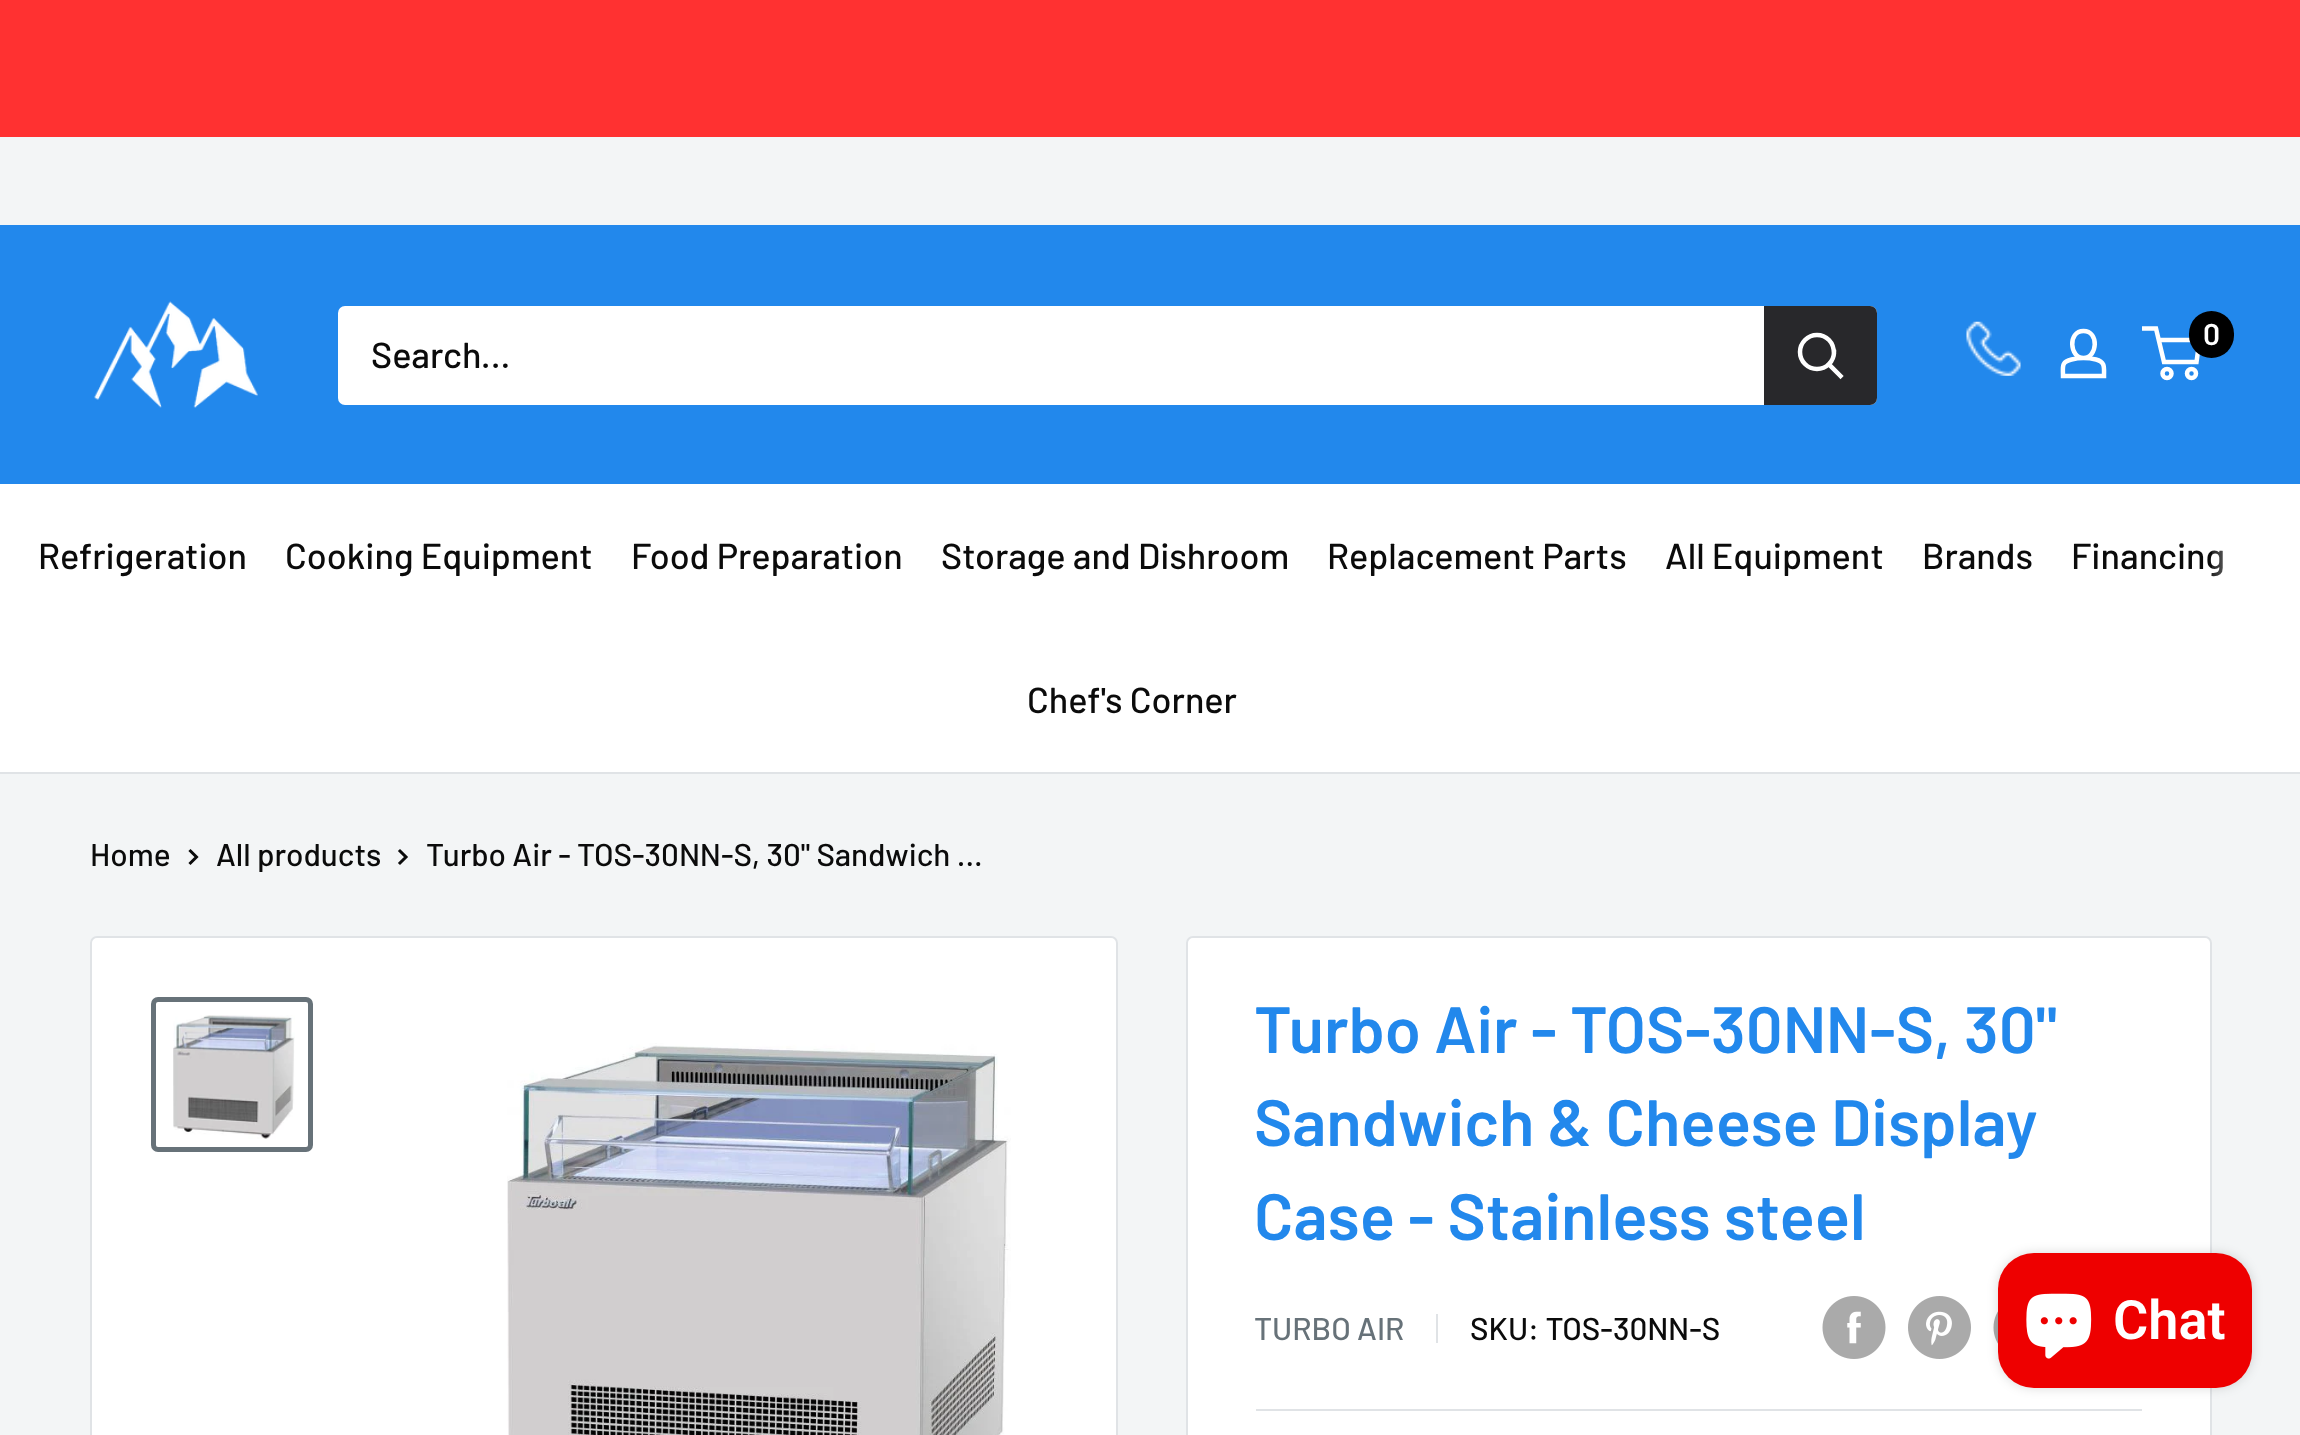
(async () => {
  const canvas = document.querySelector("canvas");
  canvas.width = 2300;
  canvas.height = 1435;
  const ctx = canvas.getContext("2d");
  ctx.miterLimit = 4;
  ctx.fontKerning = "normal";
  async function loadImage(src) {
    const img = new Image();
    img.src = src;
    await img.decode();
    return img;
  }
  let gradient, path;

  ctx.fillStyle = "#f3f5f6";
  ctx.fillRect(0, 0, 2300, 1435);
  ctx.fillStyle = "#ff3131";
  ctx.fillRect(0, 0, 2300, 137);
  ctx.fillStyle = "#2288ec";
  ctx.fillRect(0, 225, 2300, 259);
  ctx.drawImage(await loadImage("img/1.png"), 94, 301, 164, 107);
  ctx.drawImage(await loadImage("img/2.png"), 1966, 321, 55, 55);
  path = new Path2D("M2083.5 358C2087.5 358 2092 358.5 2096 359.5C2105.5 362 2104 367.5 2104 376H2063C2063 366.5 2061 362 2071.5 359.5C2075.5 358.5 2079.5 358 2083.5 358ZM2083.5 358C2069.5 358 2067.5 331 2083.5 331C2099.5 331 2097.5 358 2083.5 358Z");
  ctx.strokeStyle = "#ffffff";
  ctx.lineWidth = 4.5;
  ctx.stroke(path);
  ctx.beginPath();
  ctx.arc(2167, 373.5, 4.5, 0, Math.PI * 2);
  ctx.stroke();
  ctx.beginPath();
  ctx.arc(2191.5, 373.5, 4.5, 0, Math.PI * 2);
  ctx.stroke();
  path = new Path2D("M2158.5 340H2199.5L2196.5 362H2164L2156 328.5H2142");
  ctx.stroke(path);
  ctx.fillStyle = "#000000";
  ctx.beginPath();
  ctx.roundRect(2189, 311, 45, 47, 22.5);
  ctx.fill();
  ctx.fillStyle = "#ffffff";
  ctx.beginPath();
  ctx.roundRect(338, 306, 1539, 99, 7);
  ctx.fill();
  ctx.fillStyle = "#28282b";
  ctx.beginPath();
  ctx.roundRect(1764, 306, 113, 99, [0, 7, 7, 0]);
  ctx.fill();
  path = new Path2D("M1840.5 376L1829 364.5");
  ctx.lineCap = "square";
  ctx.stroke(path);
  ctx.beginPath();
  ctx.arc(1817, 352, 17, 0, Math.PI * 2);
  ctx.stroke();
  ctx.fillStyle = "#ffffff";
  ctx.fillRect(0, 484, 2300, 288);
  ctx.fillStyle = "#e0e3e6";
  ctx.fillRect(0, 772, 2300, 2);
  path = new Path2D("M190.5 851L196.5 857L190.5 863");
  ctx.strokeStyle = "#0b0b0b";
  ctx.lineWidth = 3;
  ctx.stroke(path);
  path = new Path2D("M400 851L406 857L400 863");
  ctx.stroke(path);
  ctx.fillStyle = "#ffffff";
  ctx.beginPath();
  ctx.roundRect(91, 937, 1026, 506, 6);
  ctx.fill();
  ctx.strokeStyle = "#e0e3e6";
  ctx.lineWidth = 2;
  ctx.stroke();
  ctx.beginPath();
  ctx.roundRect(153.5, 999.5, 157, 150, 4.5);
  ctx.strokeStyle = "#677279";
  ctx.lineWidth = 5;
  ctx.stroke();
  ctx.drawImage(await loadImage("img/3.png"), 173, 1015, 122, 124);
  ctx.drawImage(await loadImage("img/4.png"), 507, 1043, 504, 392);
  ctx.beginPath();
  ctx.roundRect(1187, 937, 1024, 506, 6);
  ctx.fill();
  ctx.strokeStyle = "#e0e3e6";
  ctx.lineWidth = 2;
  ctx.stroke();
  ctx.fillStyle = "#e0e3e6";
  ctx.fillRect(1436, 1314, 2, 29);
  ctx.drawImage(await loadImage("img/5.png"), 1822, 1296, 64, 63);
  ctx.drawImage(await loadImage("img/6.png"), 1908, 1296, 63, 63);
  ctx.drawImage(await loadImage("img/7.png"), 1993, 1311, 5, 33);
  ctx.fillRect(1256, 1409, 886, 2);
  ctx.fillStyle = "rgba(0, 0, 0, 0.15)";
  ctx.filter = "blur(5.5px)";
  ctx.beginPath();
  ctx.roundRect(1998, 1253, 254, 135, 36);
  ctx.fill();
  ctx.filter = "none";
  ctx.fillStyle = "#ee0000";
  ctx.beginPath();
  ctx.roundRect(1998, 1253, 254, 135, 36);
  ctx.fill();
  ctx.drawImage(await loadImage("img/8.png"), 2026, 1293, 66, 66);
  ctx.font = "600 30px Barlow";
  ctx.fillStyle = "#ffffff";
  ctx.fillText("0", 2203, 345);
  ctx.font = "500 36px Barlow";
  ctx.fillStyle = "#0b0b0b";
  for (const [text, x, y] of [
    ["Search...", 371, 368],
    ["Refrigeration", 38, 569],
    ["Cooking Equipment", 285, 569],
    ["Food Preparation", 631, 569],
    ["Storage and Dishroom", 941, 569],
    ["Replacement Parts", 1327, 569],
    ["All Equipment", 1665, 569],
    ["Brands", 1922, 569],
    ["Financing", 2071, 569],
    ["Chef's Corner", 1027, 713],
  ]) {
    ctx.fillText(text, x, y);
  }
  gradient = ctx.createLinearGradient(2212, 628, 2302, 628);
  gradient.addColorStop(0, "rgba(255, 255, 255, 0.1)");
  gradient.addColorStop(0.35, "rgba(255, 255, 255, 0.6)");
  gradient.addColorStop(1, "#ffffff");
  ctx.fillStyle = gradient;
  ctx.fillRect(2212, 550, 12, 27);
  ctx.font = "500 31.5px Barlow";
  ctx.fillStyle = "#0b0b0b";
  for (const [text, x, y] of [
    ["Home", 90, 866],
    ["All products", 216, 866],
    ["Turbo Air - TOS-30NN-S, 30\" Sandwich ...", 426, 866],
  ]) {
    ctx.fillText(text, x, y);
  }
  ctx.font = "600 65.25px Barlow";
  ctx.fillStyle = "#2288ec";
  for (const [text, x, y] of [
    ["Turbo Air - TOS-30NN-S, 30\"", 1254, 1053],
    ["Sandwich & Cheese Display", 1254, 1146],
    ["Case - Stainless steel", 1254, 1240],
  ]) {
    ctx.fillText(text, x, y);
  }
  ctx.font = "500 31.5px Barlow";
  ctx.fillStyle = "#677279";
  ctx.fillText("TURBO AIR", 1254, 1340);
  ctx.fillStyle = "#0b0b0b";
  ctx.fillText("SKU: TOS-30NN-S", 1470, 1340);
  ctx.font = "600 54px Roboto";
  ctx.fillStyle = "#ffffff";
  ctx.fillText("Chat", 2113, 1339);
})();
